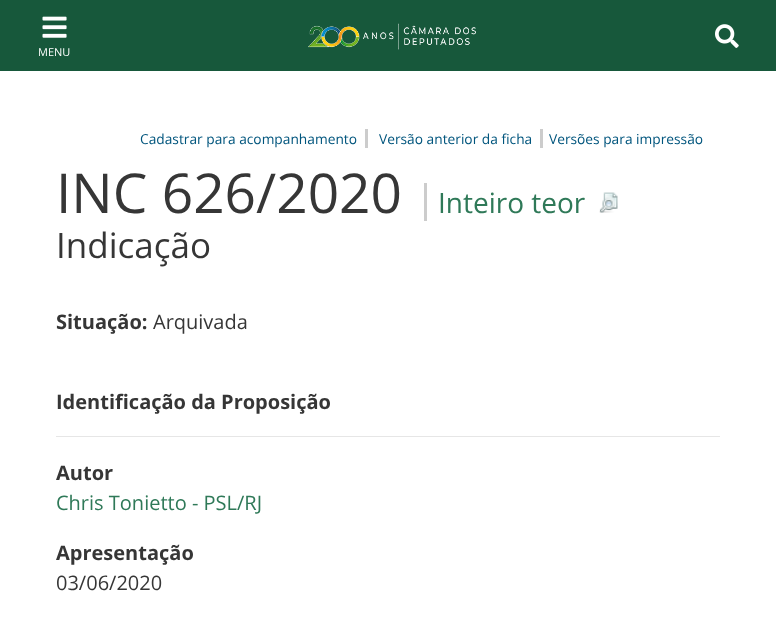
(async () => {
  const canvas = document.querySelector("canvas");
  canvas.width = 776;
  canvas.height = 634;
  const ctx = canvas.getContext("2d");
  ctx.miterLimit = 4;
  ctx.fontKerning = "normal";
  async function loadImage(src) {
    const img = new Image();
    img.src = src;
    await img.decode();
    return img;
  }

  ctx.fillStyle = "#ffffff";
  ctx.fillRect(0, 0, 776, 634);
  ctx.fillStyle = "#17583b";
  ctx.fillRect(0, 0, 776, 71);
  ctx.drawImage(await loadImage("img/1.png"), 308, 23, 168, 27);
  ctx.drawImage(await loadImage("img/2.png"), 715, 24, 24, 24);
  ctx.drawImage(await loadImage("img/3.png"), 42, 16, 25, 22);
  for (const [x, y, w, h, color] of [
    [365, 129, 3, 19, "#cccccc"],
    [540, 129, 3, 19, "#cccccc"],
    [424, 183, 3, 38, "#cccccc"],
  ]) {
    ctx.fillStyle = color;
    ctx.fillRect(x, y, w, h);
  }
  ctx.drawImage(await loadImage("img/4.png"), 599, 192, 19, 21);
  ctx.fillStyle = "#e6e6e6";
  ctx.fillRect(56, 436, 664, 1);
  ctx.font = "11px Open Sans";
  ctx.fillStyle = "#ffffff";
  ctx.fillText("MENU", 38, 56);
  ctx.font = "13.75px Open Sans";
  ctx.fillStyle = "#00557d";
  for (const [text, x, y] of [
    ["Cadastrar para acompanhamento", 140, 144],
    ["Versão anterior da ficha", 379, 144],
    ["Versões para impressão", 549, 144],
  ]) {
    ctx.fillText(text, x, y);
  }
  ctx.font = "55px Open Sans";
  ctx.fillStyle = "#363636";
  ctx.fillText("INC 626/2020", 56, 213);
  ctx.font = "28px Open Sans";
  ctx.fillStyle = "#2f7958";
  ctx.fillText("Inteiro teor", 438, 213);
  ctx.font = "35px Open Sans";
  ctx.fillStyle = "#363636";
  ctx.fillText("Indicação", 56, 258);
  ctx.font = "bold 20px Open Sans";
  ctx.fillText("Situação:", 56, 329);
  ctx.font = "20px Open Sans";
  ctx.fillText("Arquivada", 153, 329);
  ctx.font = "bold 20px Open Sans";
  ctx.fillText("Identificação da Proposição", 56, 409);
  ctx.fillText("Autor", 56, 480);
  ctx.font = "20px Open Sans";
  ctx.fillStyle = "#2f7958";
  ctx.fillText("Chris Tonietto - PSL/RJ", 56, 510);
  ctx.font = "bold 20px Open Sans";
  ctx.fillStyle = "#363636";
  ctx.fillText("Apresentação", 56, 560);
  ctx.font = "20px Open Sans";
  ctx.fillText("03/06/2020", 56, 590);
})();
